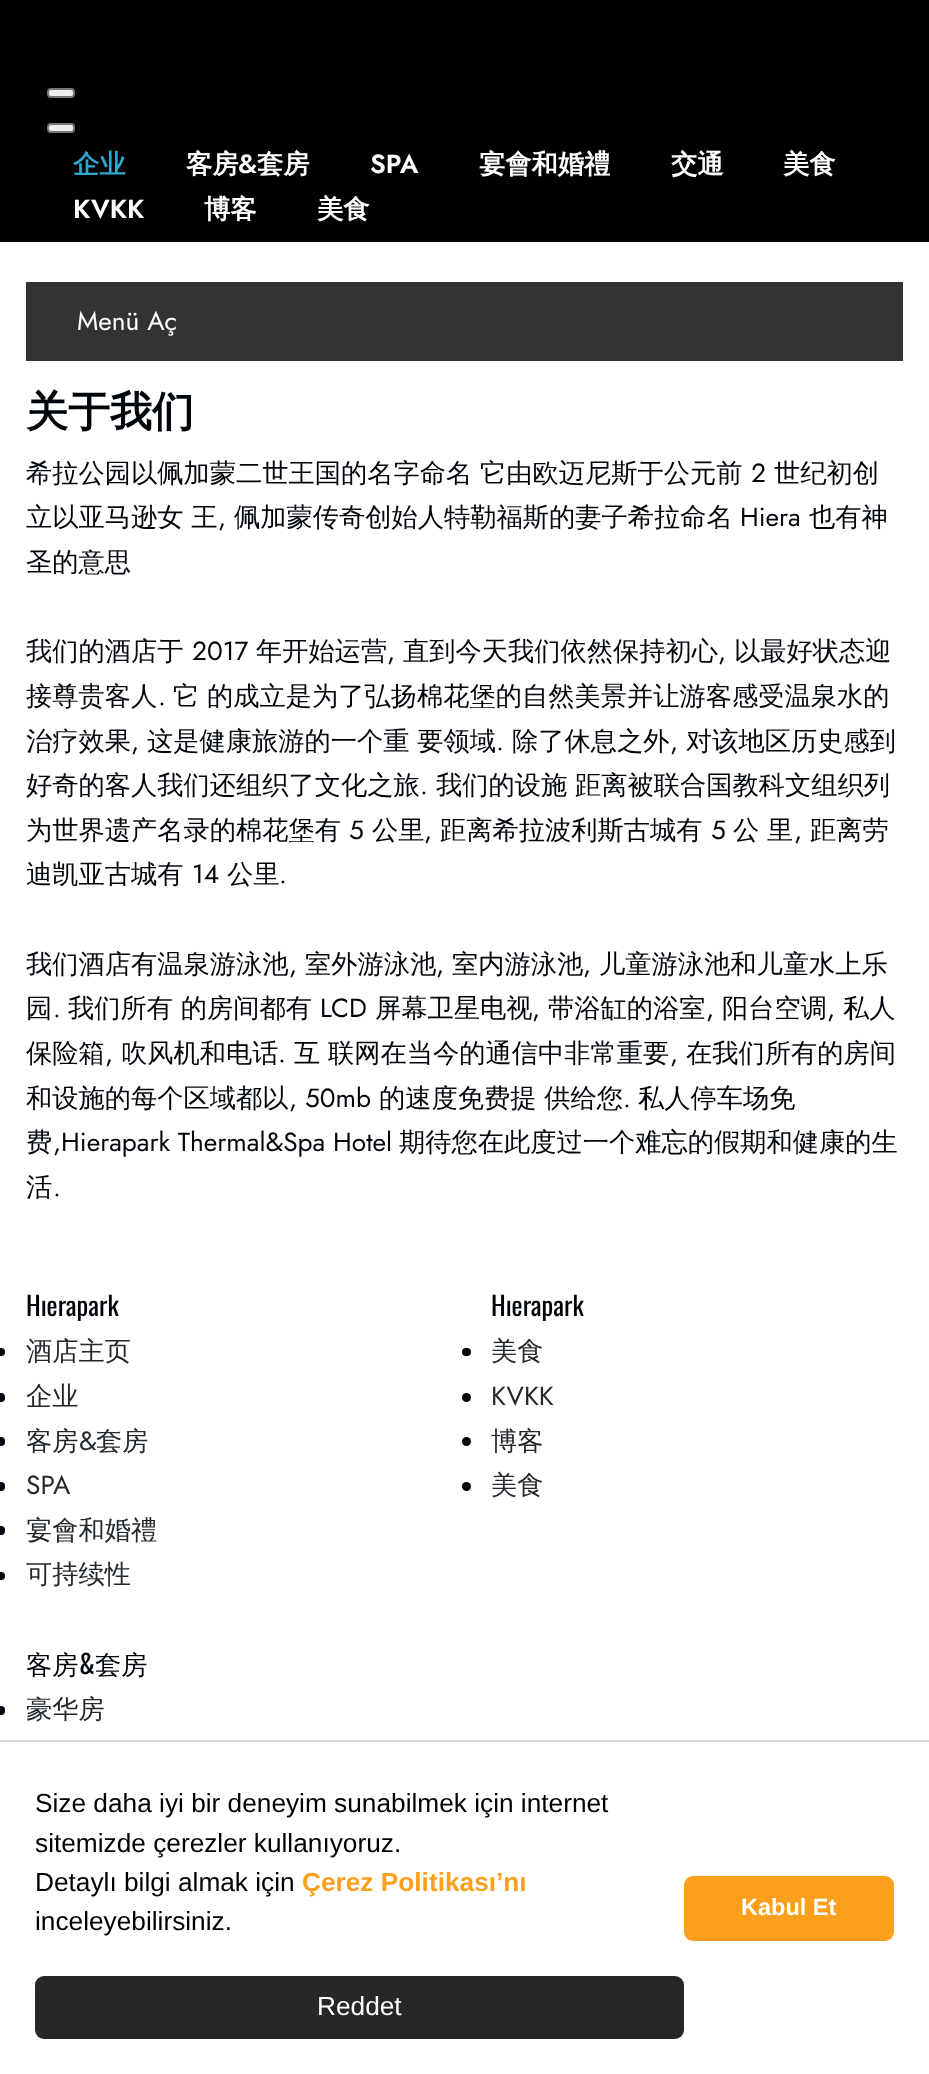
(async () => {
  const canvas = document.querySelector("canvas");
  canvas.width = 929;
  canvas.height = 2074;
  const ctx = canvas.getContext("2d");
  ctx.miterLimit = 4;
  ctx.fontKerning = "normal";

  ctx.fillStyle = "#ffffff";
  ctx.fillRect(0, 0, 929, 2074);
  ctx.fillStyle = "#000000";
  ctx.fillRect(0, 0, 929, 242);
  ctx.fillStyle = "#efefef";
  ctx.beginPath();
  ctx.roundRect(48, 89, 26, 8, 3);
  ctx.fill();
  ctx.strokeStyle = "#767676";
  ctx.lineWidth = 2;
  ctx.stroke();
  ctx.beginPath();
  ctx.roundRect(48, 124, 26, 8, 3);
  ctx.fill();
  ctx.stroke();
  ctx.fillStyle = "#333333";
  ctx.fillRect(26, 282, 877, 79);
  ctx.fillStyle = "#00050b";
  ctx.beginPath();
  ctx.arc(1, 1352, 4, 0, Math.PI * 2);
  ctx.fill();
  ctx.beginPath();
  ctx.roundRect(-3, 1393, 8, 9, 4);
  ctx.fill();
  ctx.beginPath();
  ctx.roundRect(-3, 1437, 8, 9, 4);
  ctx.fill();
  ctx.beginPath();
  ctx.roundRect(-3, 1482, 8, 9, 4);
  ctx.fill();
  ctx.beginPath();
  ctx.roundRect(-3, 1526, 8, 9, 4);
  ctx.fill();
  ctx.beginPath();
  ctx.arc(1, 1576, 4, 0, Math.PI * 2);
  ctx.fill();
  ctx.beginPath();
  ctx.roundRect(462, 1348, 9, 8, 4);
  ctx.fill();
  ctx.beginPath();
  ctx.arc(466.5, 1397.5, 4.5, 0, Math.PI * 2);
  ctx.fill();
  ctx.beginPath();
  ctx.arc(466.5, 1441.5, 4.5, 0, Math.PI * 2);
  ctx.fill();
  ctx.beginPath();
  ctx.arc(466.5, 1486.5, 4.5, 0, Math.PI * 2);
  ctx.fill();
  ctx.beginPath();
  ctx.roundRect(-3, 1706, 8, 9, 4);
  ctx.fill();
  ctx.fillStyle = "#d9d9d9";
  ctx.fillRect(0, 1740, 929, 2);
  ctx.fillStyle = "#272727";
  ctx.beginPath();
  ctx.roundRect(35, 1976, 649, 63, 9);
  ctx.fill();
  ctx.fillStyle = "#fc9f1c";
  ctx.beginPath();
  ctx.roundRect(684, 1876, 210, 65, 9);
  ctx.fill();
  ctx.font = "bold 26.25px WenQuanYi Zen Hei";
  ctx.fillStyle = "#2fa5cf";
  ctx.fillText("企业", 73, 173);
  ctx.fillStyle = "#ffffff";
  ctx.fillText("客房", 186, 173);
  ctx.font = "600 26.25px Jost";
  ctx.fillText("&", 238, 173);
  ctx.font = "bold 26.25px WenQuanYi Zen Hei";
  ctx.fillText("套房", 257, 173);
  ctx.font = "600 26.25px Jost";
  ctx.fillText("SPA", 370, 173);
  ctx.font = "bold 26.25px WenQuanYi Zen Hei";
  for (const [text, x, y] of [
    ["宴會和婚禮", 479, 173],
    ["交通", 671, 173],
    ["美食", 783, 173],
  ]) {
    ctx.fillText(text, x, y);
  }
  ctx.font = "600 26.25px Jost";
  ctx.fillText("KVKK", 73, 218);
  ctx.font = "bold 26.25px WenQuanYi Zen Hei";
  ctx.fillText("博客", 204, 218);
  ctx.fillText("美食", 317, 218);
  ctx.font = "26.25px Jost";
  ctx.fillText("Menü Aç", 77, 330);
  ctx.font = "bold 42px WenQuanYi Zen Hei";
  ctx.fillStyle = "#00050b";
  ctx.fillText("关于我们", 26, 426);
  ctx.font = "500 26.25px WenQuanYi Zen Hei";
  ctx.fillText("希拉公园以佩加蒙二世王国的名字命名 它由欧迈尼斯于公元前", 26, 482);
  ctx.font = "26.25px Jost";
  ctx.fillText("2", 751, 482);
  ctx.font = "500 26.25px WenQuanYi Zen Hei";
  ctx.fillText("世纪初创", 774, 482);
  ctx.fillText("立以亚马逊女 王", 26, 526);
  ctx.font = "26.25px Jost";
  ctx.fillText(",", 218, 526);
  ctx.font = "500 26.25px WenQuanYi Zen Hei";
  ctx.fillText("佩加蒙传奇创始人特勒福斯的妻子希拉命名", 234, 526);
  ctx.font = "26.25px Jost";
  ctx.fillText("Hiera", 740, 526);
  ctx.font = "500 26.25px WenQuanYi Zen Hei";
  for (const [text, x, y] of [
    ["也有神", 809, 526],
    ["圣的意思", 26, 571],
    ["我们的酒店于", 26, 660],
  ]) {
    ctx.fillText(text, x, y);
  }
  ctx.font = "26.25px Jost";
  ctx.fillText("2017", 192, 660);
  ctx.font = "500 26.25px WenQuanYi Zen Hei";
  ctx.fillText("年开始运营", 256, 660);
  ctx.font = "26.25px Jost";
  ctx.fillText(",", 387, 660);
  ctx.font = "500 26.25px WenQuanYi Zen Hei";
  ctx.fillText("直到今天我们依然保持初心", 403, 660);
  ctx.font = "26.25px Jost";
  ctx.fillText(",", 718, 660);
  ctx.font = "500 26.25px WenQuanYi Zen Hei";
  ctx.fillText("以最好状态迎", 734, 660);
  ctx.fillText("接尊贵客人", 26, 705);
  ctx.font = "26.25px Jost";
  ctx.fillText(".", 158, 705);
  ctx.font = "500 26.25px WenQuanYi Zen Hei";
  ctx.fillText("它 的成立是为了弘扬棉花堡的自然美景并让游客感受温泉水的", 173, 705);
  ctx.fillText("治疗效果", 26, 750);
  ctx.font = "26.25px Jost";
  ctx.fillText(",", 131, 750);
  ctx.font = "500 26.25px WenQuanYi Zen Hei";
  ctx.fillText("这是健康旅游的一个重 要领域", 147, 750);
  ctx.font = "26.25px Jost";
  ctx.fillText(".", 496, 750);
  ctx.font = "500 26.25px WenQuanYi Zen Hei";
  ctx.fillText("除了休息之外", 512, 750);
  ctx.font = "26.25px Jost";
  ctx.fillText(",", 670, 750);
  ctx.font = "500 26.25px WenQuanYi Zen Hei";
  ctx.fillText("对该地区历史感到", 686, 750);
  ctx.fillText("好奇的客人我们还组织了文化之旅", 26, 794);
  ctx.font = "26.25px Jost";
  ctx.fillText(".", 420, 794);
  ctx.font = "500 26.25px WenQuanYi Zen Hei";
  ctx.fillText("我们的设施 距离被联合国教科文组织列", 436, 794);
  ctx.fillText("为世界遗产名录的棉花堡有", 26, 839);
  ctx.font = "26.25px Jost";
  ctx.fillText("5", 349, 839);
  ctx.font = "500 26.25px WenQuanYi Zen Hei";
  ctx.fillText("公里", 372, 839);
  ctx.font = "26.25px Jost";
  ctx.fillText(",", 424, 839);
  ctx.font = "500 26.25px WenQuanYi Zen Hei";
  ctx.fillText("距离希拉波利斯古城有", 440, 839);
  ctx.font = "26.25px Jost";
  ctx.fillText("5", 711, 839);
  ctx.font = "500 26.25px WenQuanYi Zen Hei";
  ctx.fillText("公 里", 733, 839);
  ctx.font = "26.25px Jost";
  ctx.fillText(",", 794, 839);
  ctx.font = "500 26.25px WenQuanYi Zen Hei";
  ctx.fillText("距离劳", 810, 839);
  ctx.fillText("迪凯亚古城有", 26, 883);
  ctx.font = "26.25px Jost";
  ctx.fillText("14", 192, 883);
  ctx.font = "500 26.25px WenQuanYi Zen Hei";
  ctx.fillText("公里", 227, 883);
  ctx.font = "26.25px Jost";
  ctx.fillText(".", 279, 883);
  ctx.font = "500 26.25px WenQuanYi Zen Hei";
  ctx.fillText("我们酒店有温泉游泳池", 26, 973);
  ctx.font = "26.25px Jost";
  ctx.fillText(",", 289, 973);
  ctx.font = "500 26.25px WenQuanYi Zen Hei";
  ctx.fillText("室外游泳池", 305, 973);
  ctx.font = "26.25px Jost";
  ctx.fillText(",", 436, 973);
  ctx.font = "500 26.25px WenQuanYi Zen Hei";
  ctx.fillText("室内游泳池", 452, 973);
  ctx.font = "26.25px Jost";
  ctx.fillText(",", 583, 973);
  ctx.font = "500 26.25px WenQuanYi Zen Hei";
  ctx.fillText("儿童游泳池和儿童水上乐", 599, 973);
  ctx.fillText("园", 26, 1017);
  ctx.font = "26.25px Jost";
  ctx.fillText(".", 53, 1017);
  ctx.font = "500 26.25px WenQuanYi Zen Hei";
  ctx.fillText("我们所有 的房间都有", 68, 1017);
  ctx.font = "26.25px Jost";
  ctx.fillText("LCD", 320, 1017);
  ctx.font = "500 26.25px WenQuanYi Zen Hei";
  ctx.fillText("屏幕卫星电视", 375, 1017);
  ctx.font = "26.25px Jost";
  ctx.fillText(",", 532, 1017);
  ctx.font = "500 26.25px WenQuanYi Zen Hei";
  ctx.fillText("带浴缸的浴室", 548, 1017);
  ctx.font = "26.25px Jost";
  ctx.fillText(",", 706, 1017);
  ctx.font = "500 26.25px WenQuanYi Zen Hei";
  ctx.fillText("阳台空调", 722, 1017);
  ctx.font = "26.25px Jost";
  ctx.fillText(",", 827, 1017);
  ctx.font = "500 26.25px WenQuanYi Zen Hei";
  ctx.fillText("私人", 843, 1017);
  ctx.fillText("保险箱", 26, 1062);
  ctx.font = "26.25px Jost";
  ctx.fillText(",", 105, 1062);
  ctx.font = "500 26.25px WenQuanYi Zen Hei";
  ctx.fillText("吹风机和电话", 121, 1062);
  ctx.font = "26.25px Jost";
  ctx.fillText(".", 278, 1062);
  ctx.font = "500 26.25px WenQuanYi Zen Hei";
  ctx.fillText("互 联网在当今的通信中非常重要", 294, 1062);
  ctx.font = "26.25px Jost";
  ctx.fillText(",", 670, 1062);
  ctx.font = "500 26.25px WenQuanYi Zen Hei";
  ctx.fillText("在我们所有的房间", 686, 1062);
  ctx.fillText("和设施的每个区域都以", 26, 1107);
  ctx.font = "26.25px Jost";
  ctx.fillText(", 50mb", 289, 1107);
  ctx.font = "500 26.25px WenQuanYi Zen Hei";
  ctx.fillText("的速度免费提 供给您", 379, 1107);
  ctx.font = "26.25px Jost";
  ctx.fillText(".", 623, 1107);
  ctx.font = "500 26.25px WenQuanYi Zen Hei";
  ctx.fillText("私人停车场免", 638, 1107);
  ctx.fillText("费", 26, 1151);
  ctx.font = "26.25px Jost";
  ctx.fillText(",Hierapark Thermal&Spa Hotel", 53, 1151);
  ctx.font = "500 26.25px WenQuanYi Zen Hei";
  ctx.fillText("期待您在此度过一个难忘的假期和健康的生", 399, 1151);
  ctx.fillText("活", 26, 1196);
  ctx.font = "26.25px Jost";
  ctx.fillText(".", 53, 1196);
  ctx.font = "26.25px Oswald";
  ctx.fillText("Hıerapark", 26, 1316);
  ctx.font = "500 26.25px WenQuanYi Zen Hei";
  ctx.fillStyle = "#23282d";
  for (const [text, x, y] of [
    ["酒店主页", 26, 1360],
    ["企业", 26, 1405],
    ["客房", 26, 1450],
  ]) {
    ctx.fillText(text, x, y);
  }
  ctx.font = "26.25px Jost";
  ctx.fillText("&", 79, 1450);
  ctx.font = "500 26.25px WenQuanYi Zen Hei";
  ctx.fillText("套房", 96, 1450);
  ctx.font = "26.25px Jost";
  ctx.fillText("SPA", 26, 1494);
  ctx.font = "500 26.25px WenQuanYi Zen Hei";
  ctx.fillText("宴會和婚禮", 26, 1539);
  ctx.fillText("可持续性", 26, 1583);
  ctx.font = "26.25px Oswald";
  ctx.fillStyle = "#00050b";
  ctx.fillText("Hıerapark", 491, 1316);
  ctx.font = "500 26.25px WenQuanYi Zen Hei";
  ctx.fillStyle = "#23282d";
  ctx.fillText("美食", 491, 1360);
  ctx.font = "26.25px Jost";
  ctx.fillText("KVKK", 491, 1405);
  ctx.font = "500 26.25px WenQuanYi Zen Hei";
  ctx.fillText("博客", 491, 1450);
  ctx.fillText("美食", 491, 1494);
  ctx.fillStyle = "#00050b";
  ctx.fillText("客房", 26, 1674);
  ctx.font = "26.25px Oswald";
  ctx.fillText("&", 79, 1674);
  ctx.font = "500 26.25px WenQuanYi Zen Hei";
  ctx.fillText("套房", 95, 1674);
  ctx.fillStyle = "#23282d";
  ctx.fillText("豪华房", 26, 1718);
  ctx.font = "26.25px Liberation Sans";
  ctx.fillStyle = "#000000";
  for (const [text, x, y] of [
    ["Size daha iyi bir deneyim sunabilmek için internet", 35, 1812],
    ["sitemizde çerezler kullanıyoruz.", 35, 1852],
    ["Detaylı bilgi almak için", 35, 1891],
  ]) {
    ctx.fillText(text, x, y);
  }
  ctx.font = "bold 26.25px Liberation Sans";
  ctx.fillStyle = "#fc9f1c";
  ctx.fillText("Çerez Politikası’nı", 302, 1891);
  ctx.font = "26.25px Liberation Sans";
  ctx.fillStyle = "#000000";
  ctx.fillText("inceleyebilirsiniz.", 35, 1930);
  ctx.fillStyle = "#ffffff";
  ctx.fillText("Reddet", 317, 2015);
  ctx.font = "bold 23.5px Liberation Sans";
  ctx.fillText("Kabul Et", 741, 1915);
})();
